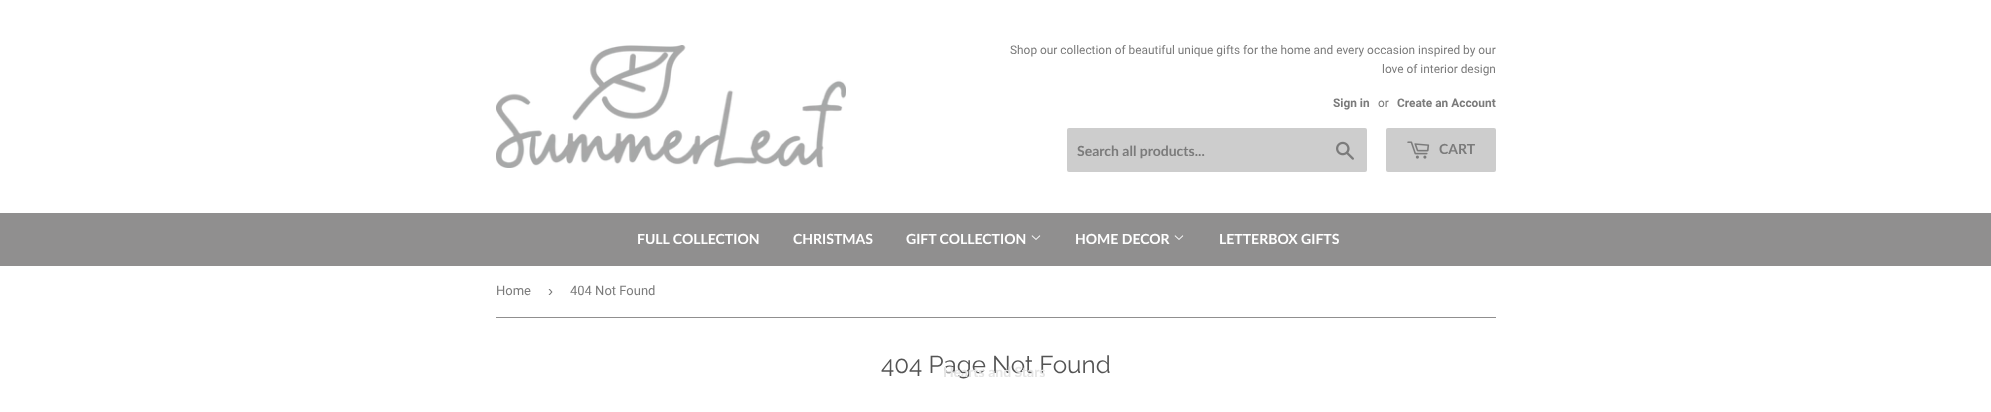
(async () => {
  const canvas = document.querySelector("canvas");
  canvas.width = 1991;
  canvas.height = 412;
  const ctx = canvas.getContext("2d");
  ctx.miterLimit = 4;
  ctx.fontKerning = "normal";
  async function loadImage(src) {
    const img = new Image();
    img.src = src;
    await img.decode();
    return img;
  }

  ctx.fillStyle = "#ffffff";
  ctx.fillRect(0, 0, 1991, 412);
  ctx.drawImage(await loadImage("img/1.png"), 496, 45, 350, 123);
  ctx.fillStyle = "#cdcdcd";
  ctx.beginPath();
  ctx.roundRect(1067, 128, 300, 44, 2);
  ctx.fill();
  ctx.drawImage(await loadImage("img/2.png"), 1336, 141, 18, 19);
  ctx.beginPath();
  ctx.roundRect(1386, 128, 110, 44, 2);
  ctx.fill();
  ctx.drawImage(await loadImage("img/3.png"), 1407, 141, 23, 18);
  ctx.fillStyle = "#908f8f";
  ctx.fillRect(0, 213, 1991, 53);
  ctx.drawImage(await loadImage("img/4.png"), 1031, 235, 10, 5);
  ctx.drawImage(await loadImage("img/4.png"), 1174, 235, 10, 5);
  ctx.fillRect(496, 317, 1000, 1);
  ctx.font = "11.9px Roboto";
  ctx.fillStyle = "#7b7b7b";
  ctx.fillText("Shop our collection of beautiful unique gifts for the home and every occasion inspired by our", 1010, 54);
  ctx.fillText("love of interior design", 1382, 73);
  ctx.font = "bold 11.9px Roboto";
  ctx.fillText("Sign in", 1333, 107);
  ctx.font = "11.9px Roboto";
  ctx.fillText("or", 1378, 107);
  ctx.font = "bold 11.9px Roboto";
  ctx.fillText("Create an Account", 1397, 107);
  ctx.font = "bold 14px Lato";
  ctx.fillText("Search all products...", 1077, 156);
  ctx.fillText("CART", 1439, 154);
  ctx.fillStyle = "#ffffff";
  for (const [text, x, y] of [
    ["FULL COLLECTION", 637, 244],
    ["CHRISTMAS", 793, 244],
    ["GIFT COLLECTION", 906, 244],
    ["HOME DECOR", 1075, 244],
    ["LETTERBOX GIFTS", 1219, 244],
  ]) {
    ctx.fillText(text, x, y);
  }
  ctx.font = "13px Roboto";
  ctx.fillStyle = "#7b7b7b";
  ctx.fillText("Home", 496, 295);
  ctx.font = "15px Liberation Sans";
  ctx.fillText("›", 548, 296);
  ctx.font = "13px Roboto";
  ctx.fillText("404 Not Found", 570, 295);
  ctx.font = "24.25px Raleway";
  ctx.fillStyle = "#545454";
  ctx.fillText("404 Page Not Found", 881, 373);
  ctx.font = "bold 14px Lato";
  ctx.fillStyle = "#e5e5e5";
  ctx.fillText("Hearts and Stars", 943, 377);
})();
